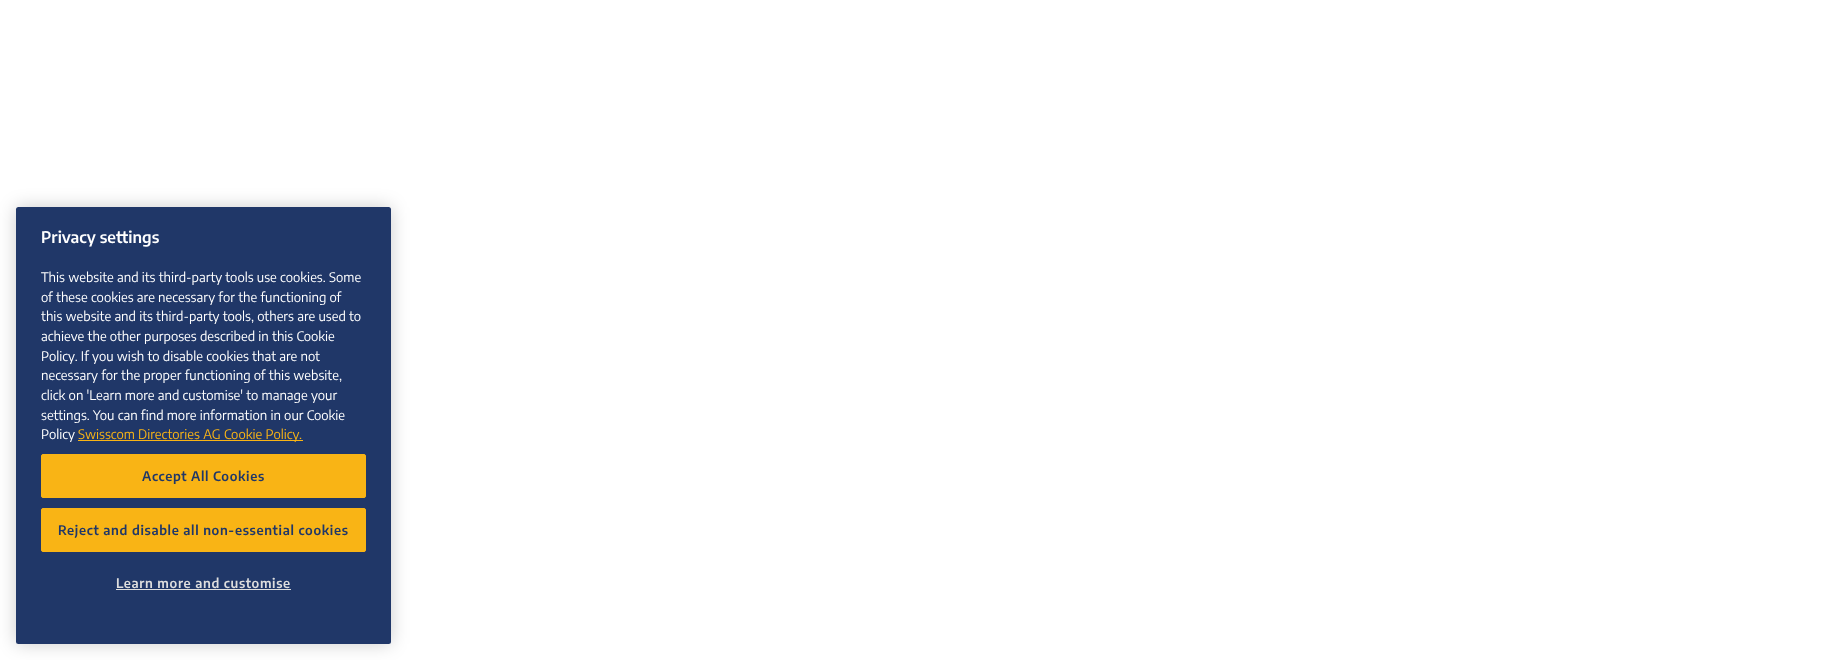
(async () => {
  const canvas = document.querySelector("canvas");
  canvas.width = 1824;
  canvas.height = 660;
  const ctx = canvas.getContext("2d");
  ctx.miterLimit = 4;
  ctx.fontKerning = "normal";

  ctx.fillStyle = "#ffffff";
  ctx.fillRect(0, 0, 1824, 660);
  ctx.fillStyle = "rgba(0, 0, 0, 0.2)";
  ctx.filter = "blur(9px)";
  ctx.beginPath();
  ctx.roundRect(16, 207, 375, 437, 2.5);
  ctx.fill();
  ctx.filter = "none";
  ctx.fillStyle = "#203768";
  ctx.beginPath();
  ctx.roundRect(16, 207, 375, 437, 2.5);
  ctx.fill();
  ctx.fillStyle = "#f9b415";
  ctx.fillRect(78, 440, 225, 1);
  ctx.beginPath();
  ctx.roundRect(41.5, 454.5, 324, 43, 1.5);
  ctx.fill();
  ctx.strokeStyle = "#f9b415";
  ctx.stroke();
  ctx.beginPath();
  ctx.roundRect(41.5, 508.5, 324, 43, 1.5);
  ctx.fill();
  ctx.stroke();
  ctx.fillStyle = "#dedede";
  ctx.fillRect(116, 589, 175, 1);
  ctx.font = "600 16px Encode Sans";
  ctx.fillStyle = "#ffffff";
  ctx.fillText("Privacy settings", 41, 243);
  ctx.font = "13.1px Encode Sans";
  for (const [text, x, y] of [
    ["This website and its third-party tools use cookies. Some", 41, 282],
    ["of these cookies are necessary for the functioning of", 41, 302],
    ["this website and its third-party tools, others are used to", 41, 321],
    ["achieve the other purposes described in this Cookie", 41, 341],
    ["Policy. If you wish to disable cookies that are not", 41, 361],
    ["necessary for the proper functioning of this website,", 41, 380],
    ["click on 'Learn more and customise' to manage your", 41, 400],
    ["settings. You can find more information in our Cookie", 41, 420],
    ["Policy", 41, 439],
  ]) {
    ctx.fillText(text, x, y);
  }
  ctx.fillStyle = "#f9b415";
  ctx.fillText("Swisscom Directories AG Cookie Policy.", 78, 439);
  ctx.letterSpacing = "0.65px";
  ctx.font = "600 13.1px Encode Sans";
  ctx.fillStyle = "#203768";
  ctx.fillText("Accept All Cookies", 142, 481);
  ctx.fillText("Reject and disable all non-essential cookies", 58, 535);
  ctx.fillStyle = "#dedede";
  ctx.fillText("Learn more and customise", 116, 588);
})();
